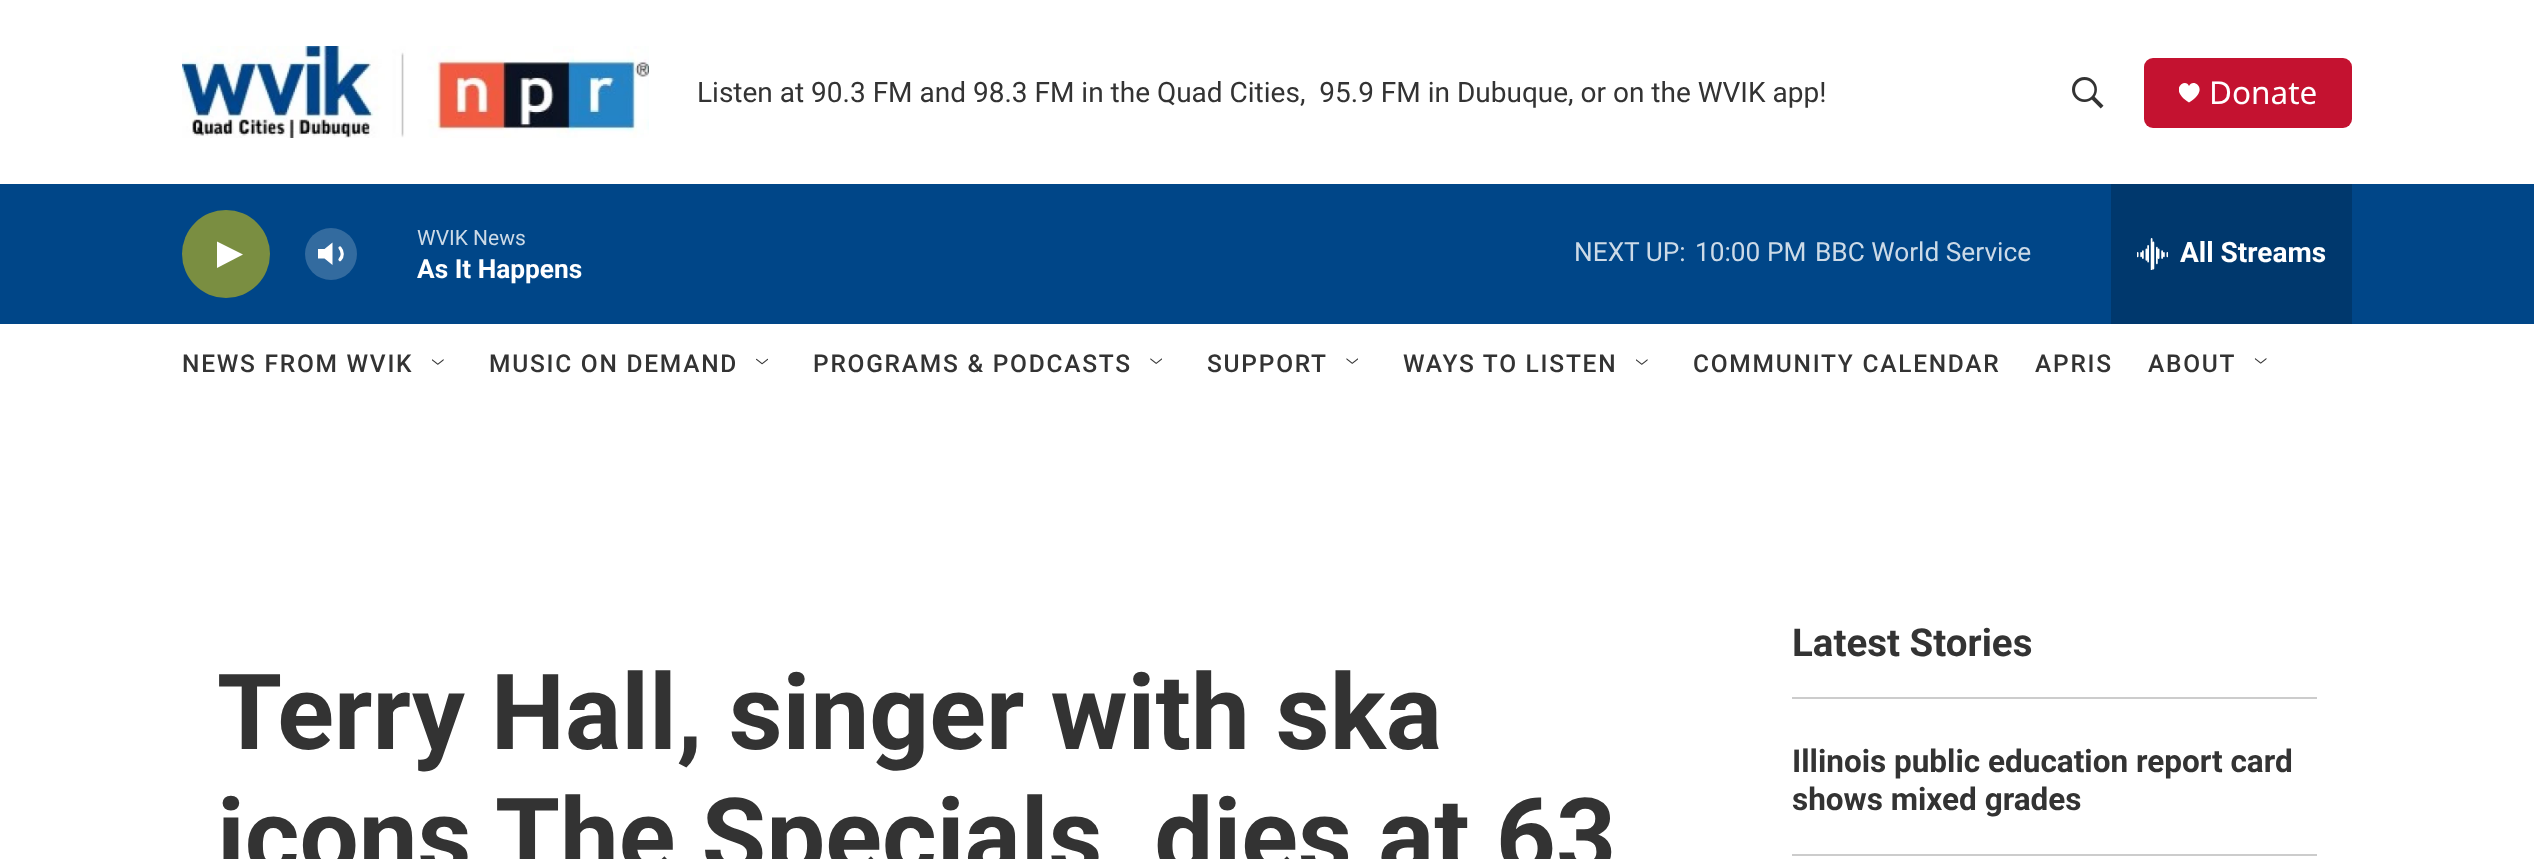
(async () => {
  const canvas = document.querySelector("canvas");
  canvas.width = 2534;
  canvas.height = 859;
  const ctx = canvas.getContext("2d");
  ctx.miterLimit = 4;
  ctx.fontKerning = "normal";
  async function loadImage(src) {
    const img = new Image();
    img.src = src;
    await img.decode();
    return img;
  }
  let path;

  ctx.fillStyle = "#ffffff";
  ctx.fillRect(0, 0, 2534, 859);
  ctx.drawImage(await loadImage("img/1.png"), 182, 46, 467, 92);
  ctx.drawImage(await loadImage("img/2.png"), 2072, 77, 32, 32);
  ctx.fillStyle = "#c41230";
  ctx.beginPath();
  ctx.roundRect(2144, 58, 208, 70, 9);
  ctx.fill();
  ctx.save();
  ctx.beginPath();
  ctx.rect(2179, 82, 21, 21);
  ctx.clip();
  ctx.fillStyle = "#ffffff";
  path = new Path2D("M2189 86C2186 77 2167.5 89 2189 102.5C2211 89 2192.5 77 2189 86Z");
  ctx.fill(path);
  ctx.restore();
  ctx.fillStyle = "#004688";
  ctx.fillRect(0, 184, 2534, 140);
  ctx.fillStyle = "#7a8e41";
  ctx.beginPath();
  ctx.arc(226, 254, 44, 0, Math.PI * 2);
  ctx.fill();
  ctx.fillStyle = "#ffffff";
  path = new Path2D("M217 241.5L243 254.5L217 268Z");
  ctx.fill(path);
  path = new Path2D("M332.5 242.5L324.5 249H318V258.5H324.5L332.5 265Z");
  ctx.fill(path);
  path = new Path2D("M340 248C343 251.5 343 256.5 340 259.5");
  ctx.strokeStyle = "#ffffff";
  ctx.lineWidth = 3.2;
  ctx.lineCap = "round";
  ctx.lineJoin = "round";
  ctx.stroke(path);
  ctx.fillStyle = "rgba(255, 255, 255, 0.2)";
  ctx.beginPath();
  ctx.arc(331, 254, 26, 0, Math.PI * 2);
  ctx.fill();
  ctx.fillStyle = "#00386d";
  ctx.fillRect(2111, 184, 241, 140);
  ctx.drawImage(await loadImage("img/3.png"), 2137, 238, 31, 32);
  ctx.drawImage(await loadImage("img/4.png"), 432, 359, 12, 6);
  ctx.drawImage(await loadImage("img/5.png"), 756, 358, 12, 7);
  ctx.drawImage(await loadImage("img/6.png"), 1150, 358, 12, 6);
  ctx.drawImage(await loadImage("img/7.png"), 1346, 358, 12, 6);
  ctx.drawImage(await loadImage("img/8.png"), 1636, 359, 12, 6);
  ctx.drawImage(await loadImage("img/9.png"), 2254, 358, 13, 6);
  ctx.fillStyle = "#cccccc";
  ctx.fillRect(1792, 697, 525, 2);
  ctx.fillRect(1792, 854, 525, 2);
  ctx.font = "28px Roboto";
  ctx.fillStyle = "#333333";
  ctx.fillText("Listen at 90.3 FM and 98.3 FM in the Quad Cities,  95.9 FM in Dubuque, or on the WVIK app!", 697, 102);
  ctx.font = "31.5px Noto Sans";
  ctx.fillStyle = "#ffffff";
  ctx.fillText("Donate", 2209, 104);
  ctx.font = "21px Roboto";
  ctx.fillStyle = "#ccdae7";
  ctx.fillText("WVIK News", 417, 245);
  ctx.font = "bold 26.25px 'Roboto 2'";
  ctx.fillStyle = "#ffffff";
  ctx.fillText("As It Happens", 417, 278);
  ctx.font = "26.25px Roboto";
  ctx.fillStyle = "#ccdae7";
  for (const [text, x, y] of [
    ["NEXT UP:", 1574, 261],
    ["10:00 PM", 1695, 261],
    ["BBC World Service", 1815, 261],
  ]) {
    ctx.fillText(text, x, y);
  }
  ctx.font = "bold 28px 'Roboto 2'";
  ctx.fillStyle = "#ffffff";
  ctx.fillText("All Streams", 2180, 262);
  ctx.letterSpacing = "1.75px";
  ctx.font = "500 24.5px Roboto";
  ctx.fillStyle = "#333333";
  for (const [text, x, y] of [
    ["NEWS FROM WVIK", 182, 372],
    ["MUSIC ON DEMAND", 489, 372],
    ["PROGRAMS & PODCASTS", 813, 372],
    ["SUPPORT", 1207, 372],
    ["WAYS TO LISTEN", 1403, 372],
    ["COMMUNITY CALENDAR", 1693, 372],
    ["APRIS", 2035, 372],
    ["ABOUT", 2148, 372],
  ]) {
    ctx.fillText(text, x, y);
  }
  ctx.letterSpacing = "0px";
  ctx.font = "bold 105px Roboto";
  ctx.fillText("Terry Hall, singer with ska", 217, 749);
  ctx.fillText("icons The Specials, dies at 63", 217, 873);
  ctx.font = "bold 38.5px Roboto";
  ctx.fillText("Latest Stories", 1792, 656);
  ctx.font = "bold 31.5px Roboto";
  ctx.fillText("Illinois public education report card", 1792, 772);
  ctx.fillText("shows mixed grades", 1792, 810);
})();
